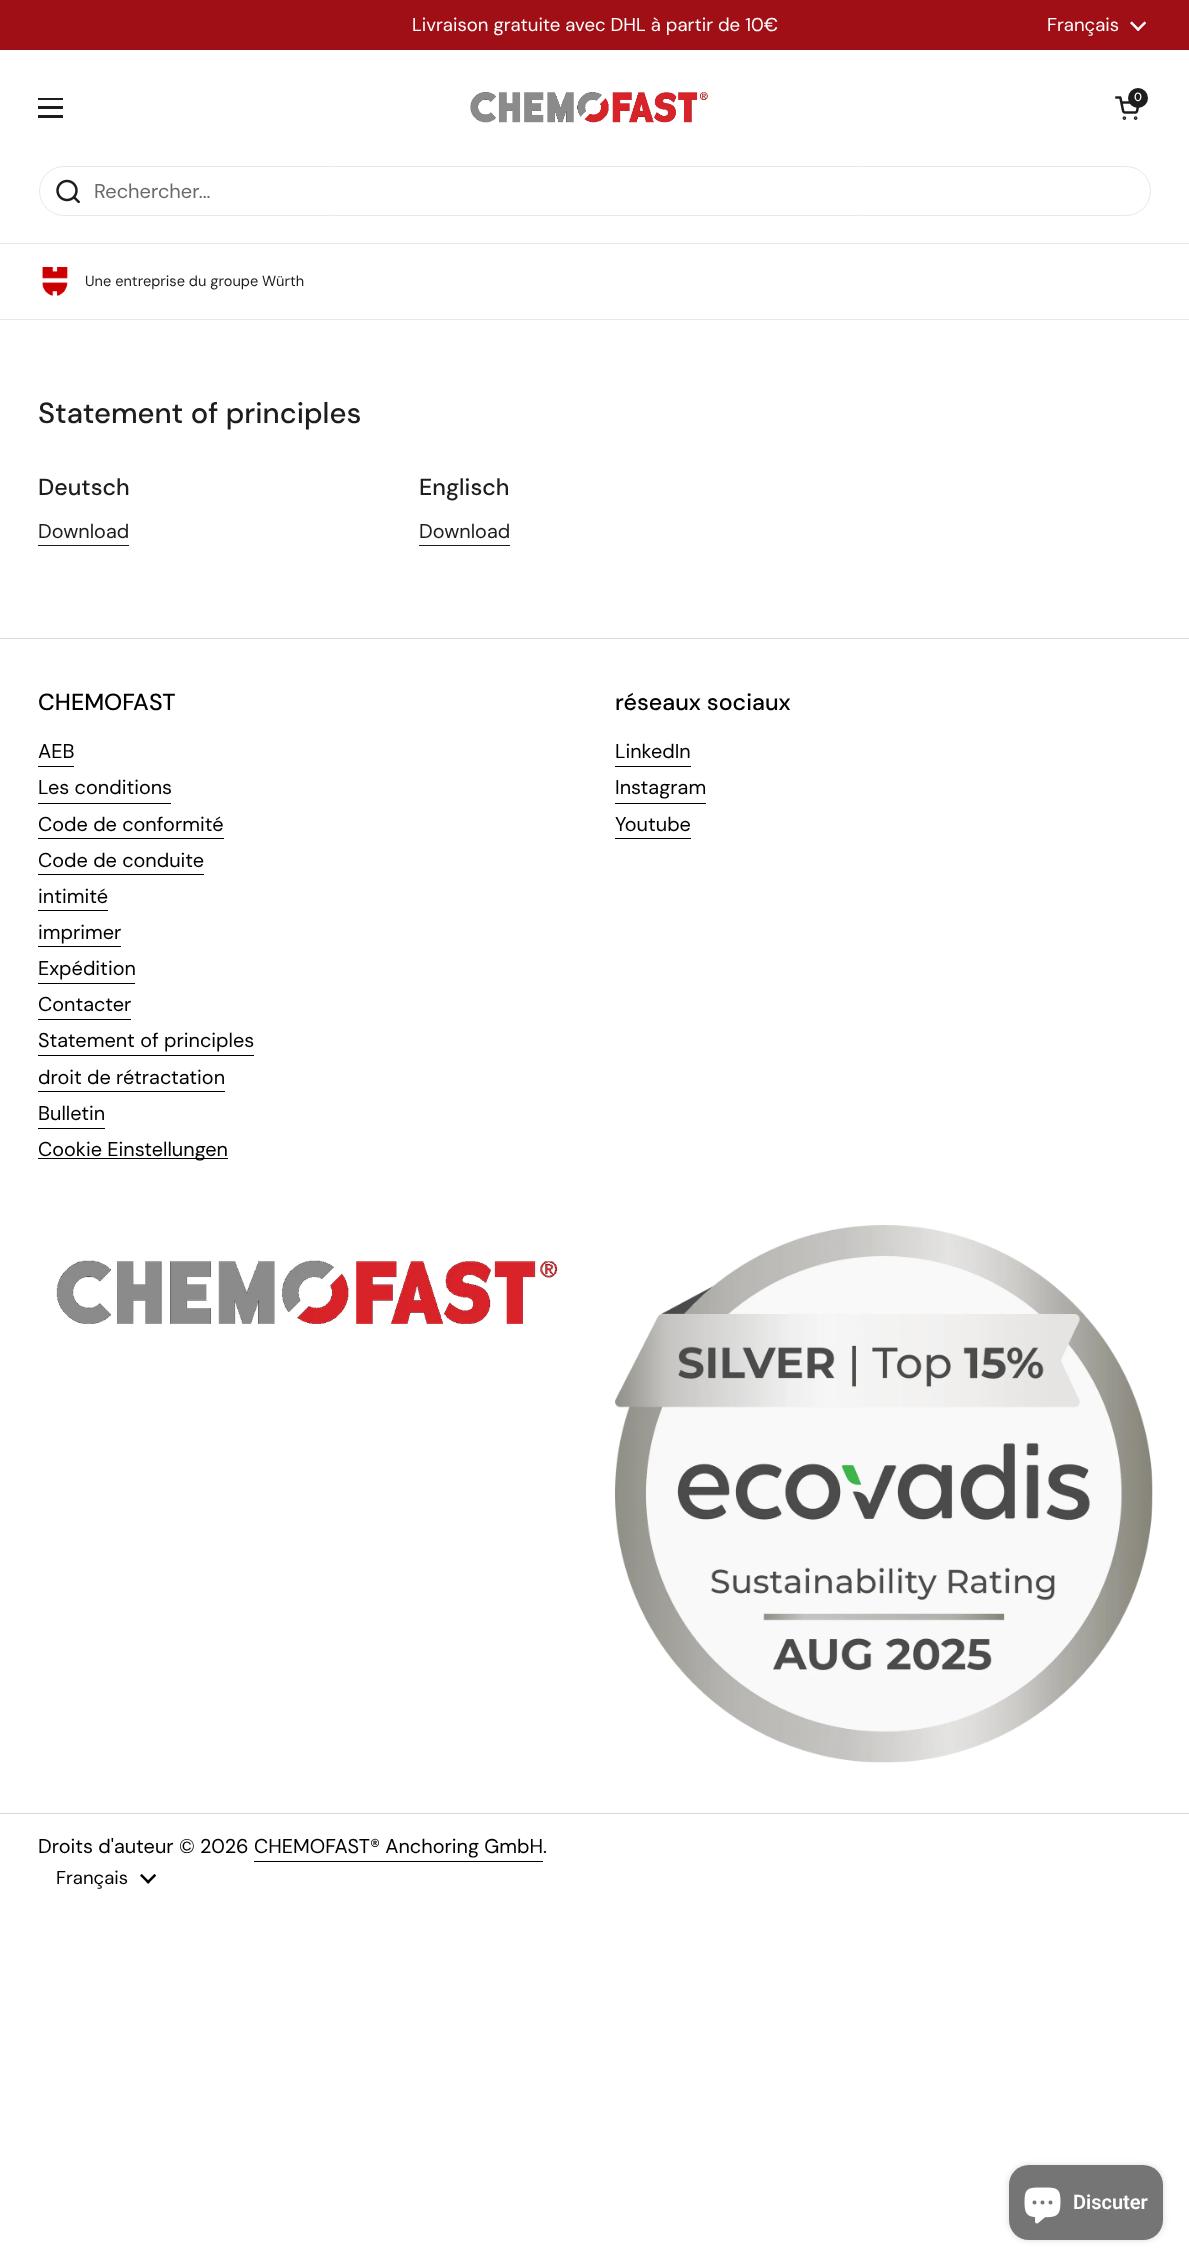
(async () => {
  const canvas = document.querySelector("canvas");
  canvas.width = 1189;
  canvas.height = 2266;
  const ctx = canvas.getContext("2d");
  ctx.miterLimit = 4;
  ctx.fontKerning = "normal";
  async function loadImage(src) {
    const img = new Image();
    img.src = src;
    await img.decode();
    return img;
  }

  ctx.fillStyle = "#ffffff";
  ctx.fillRect(0, 0, 1189, 2266);
  ctx.fillStyle = "#9f0f15";
  ctx.fillRect(0, 0, 1189, 50);
  ctx.drawImage(await loadImage("img/1.png"), 1130, 21, 16, 10);
  ctx.drawImage(await loadImage("img/2.png"), 470, 92, 238, 31);
  ctx.drawImage(await loadImage("img/3.png"), 1115, 96, 25, 24);
  ctx.fillStyle = "#1d1d1d";
  ctx.beginPath();
  ctx.arc(1138, 98, 10, 0, Math.PI * 2);
  ctx.fill();
  for (const [x, y, w, h, color] of [
    [38, 98, 25, 2, "#1d1d1d"],
    [38, 106, 25, 3, "#1d1d1d"],
    [38, 115, 25, 3, "#1d1d1d"],
    [0, 243, 1189, 1, "#e8e8e8"],
  ]) {
    ctx.fillStyle = color;
    ctx.fillRect(x, y, w, h);
  }
  ctx.beginPath();
  ctx.roundRect(39.5, 166.5, 1111, 49, 24.5);
  ctx.strokeStyle = "#e8e8e8";
  ctx.stroke();
  ctx.drawImage(await loadImage("img/4.png"), 56, 179, 24, 25);
  ctx.fillRect(0, 319, 1189, 1);
  ctx.drawImage(await loadImage("img/5.png"), 42, 267, 26, 29);
  for (const [x, y, w, h, color] of [
    [38, 545, 91, 1, "#1d1d1d"],
    [419, 545, 91, 1, "#1d1d1d"],
    [0, 638, 1189, 1, "#d9d9d9"],
    [38, 766, 36, 1, "#000000"],
    [38, 803, 133, 1, "#000000"],
    [38, 838, 186, 1, "#000000"],
    [38, 874, 166, 1, "#000000"],
    [38, 910, 70, 1, "#000000"],
    [38, 946, 83, 1, "#000000"],
    [38, 983, 97, 1, "#000000"],
    [38, 1019, 93, 1, "#000000"],
    [38, 1055, 216, 1, "#000000"],
    [38, 1091, 187, 1, "#000000"],
    [38, 1128, 67, 1, "#000000"],
    [38, 1158, 190, 1, "#000000"],
    [615, 766, 76, 1, "#000000"],
    [615, 803, 91, 1, "#000000"],
    [615, 838, 76, 1, "#000000"],
  ]) {
    ctx.fillStyle = color;
    ctx.fillRect(x, y, w, h);
  }
  ctx.drawImage(await loadImage("img/6.png"), 56, 1260, 502, 64);
  ctx.drawImage(await loadImage("img/7.png"), 615, 1225, 538, 538);
  ctx.fillStyle = "#d9d9d9";
  ctx.fillRect(0, 1813, 1189, 1);
  ctx.fillStyle = "#000000";
  ctx.fillRect(254, 1861, 289, 1);
  ctx.drawImage(await loadImage("img/8.png"), 140, 1874, 16, 10);
  ctx.fillStyle = "rgba(0, 0, 0, 0.15)";
  ctx.filter = "blur(3px)";
  ctx.beginPath();
  ctx.roundRect(1009, 2165, 154, 75, 20);
  ctx.fill();
  ctx.filter = "none";
  ctx.fillStyle = "#757575";
  ctx.beginPath();
  ctx.roundRect(1009, 2165, 154, 75, 20);
  ctx.fill();
  ctx.drawImage(await loadImage("img/9.png"), 1024, 2187, 37, 37);
  ctx.font = "18.6px DM Sans";
  ctx.fillStyle = "#ffffff";
  ctx.fillText("Livraison gratuite avec DHL à partir de 10€", 412, 31);
  ctx.fillText("Français", 1047, 31);
  ctx.font = "500 12px 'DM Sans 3'";
  ctx.fillText("0", 1134, 101);
  ctx.font = "20px 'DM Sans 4'";
  ctx.fillStyle = "#6a6a6a";
  ctx.fillText("Rechercher...", 94, 198);
  ctx.font = "14.6px 'DM Sans 3'";
  ctx.fillStyle = "#1d1d1d";
  ctx.fillText("Une entreprise du groupe Würth", 85, 286);
  ctx.font = "500 29.25px DM Sans";
  ctx.fillText("Statement of principles", 38, 423);
  ctx.font = "500 23.25px 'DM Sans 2'";
  ctx.fillText("Deutsch", 38, 495);
  ctx.font = "19.9px 'DM Sans 2'";
  ctx.fillText("Download", 38, 538);
  ctx.font = "500 23.25px 'DM Sans 2'";
  ctx.fillText("Englisch", 419, 495);
  ctx.font = "19.9px 'DM Sans 2'";
  ctx.fillText("Download", 419, 538);
  ctx.font = "500 23.25px 'DM Sans 2'";
  ctx.fillStyle = "#000000";
  ctx.fillText("CHEMOFAST", 38, 710);
  ctx.font = "19.9px 'DM Sans 2'";
  for (const [text, x, y] of [
    ["AEB", 38, 758],
    ["Les conditions", 38, 794],
    ["Code de conformité", 38, 831],
    ["Code de conduite", 38, 867],
    ["intimité", 38, 903],
    ["imprimer", 38, 939],
    ["Expédition", 38, 975],
    ["Contacter", 38, 1011],
    ["Statement of principles", 38, 1047],
    ["droit de rétractation", 38, 1084],
    ["Bulletin", 38, 1120],
    ["Cookie Einstellungen", 38, 1156],
  ]) {
    ctx.fillText(text, x, y);
  }
  ctx.font = "500 23.25px 'DM Sans 2'";
  ctx.fillText("réseaux sociaux", 615, 710);
  ctx.font = "19.9px 'DM Sans 2'";
  for (const [text, x, y] of [
    ["LinkedIn", 615, 758],
    ["Instagram", 615, 794],
    ["Youtube", 615, 831],
    ["Droits d'auteur © 2026 CHEMOFAST® Anchoring GmbH.", 38, 1853],
  ]) {
    ctx.fillText(text, x, y);
  }
  ctx.font = "18.6px DM Sans";
  ctx.fillText("Français", 56, 1884);
  ctx.font = "600 20px Roboto";
  ctx.fillStyle = "#ffffff";
  ctx.fillText("Discuter", 1073, 2209);
})();
